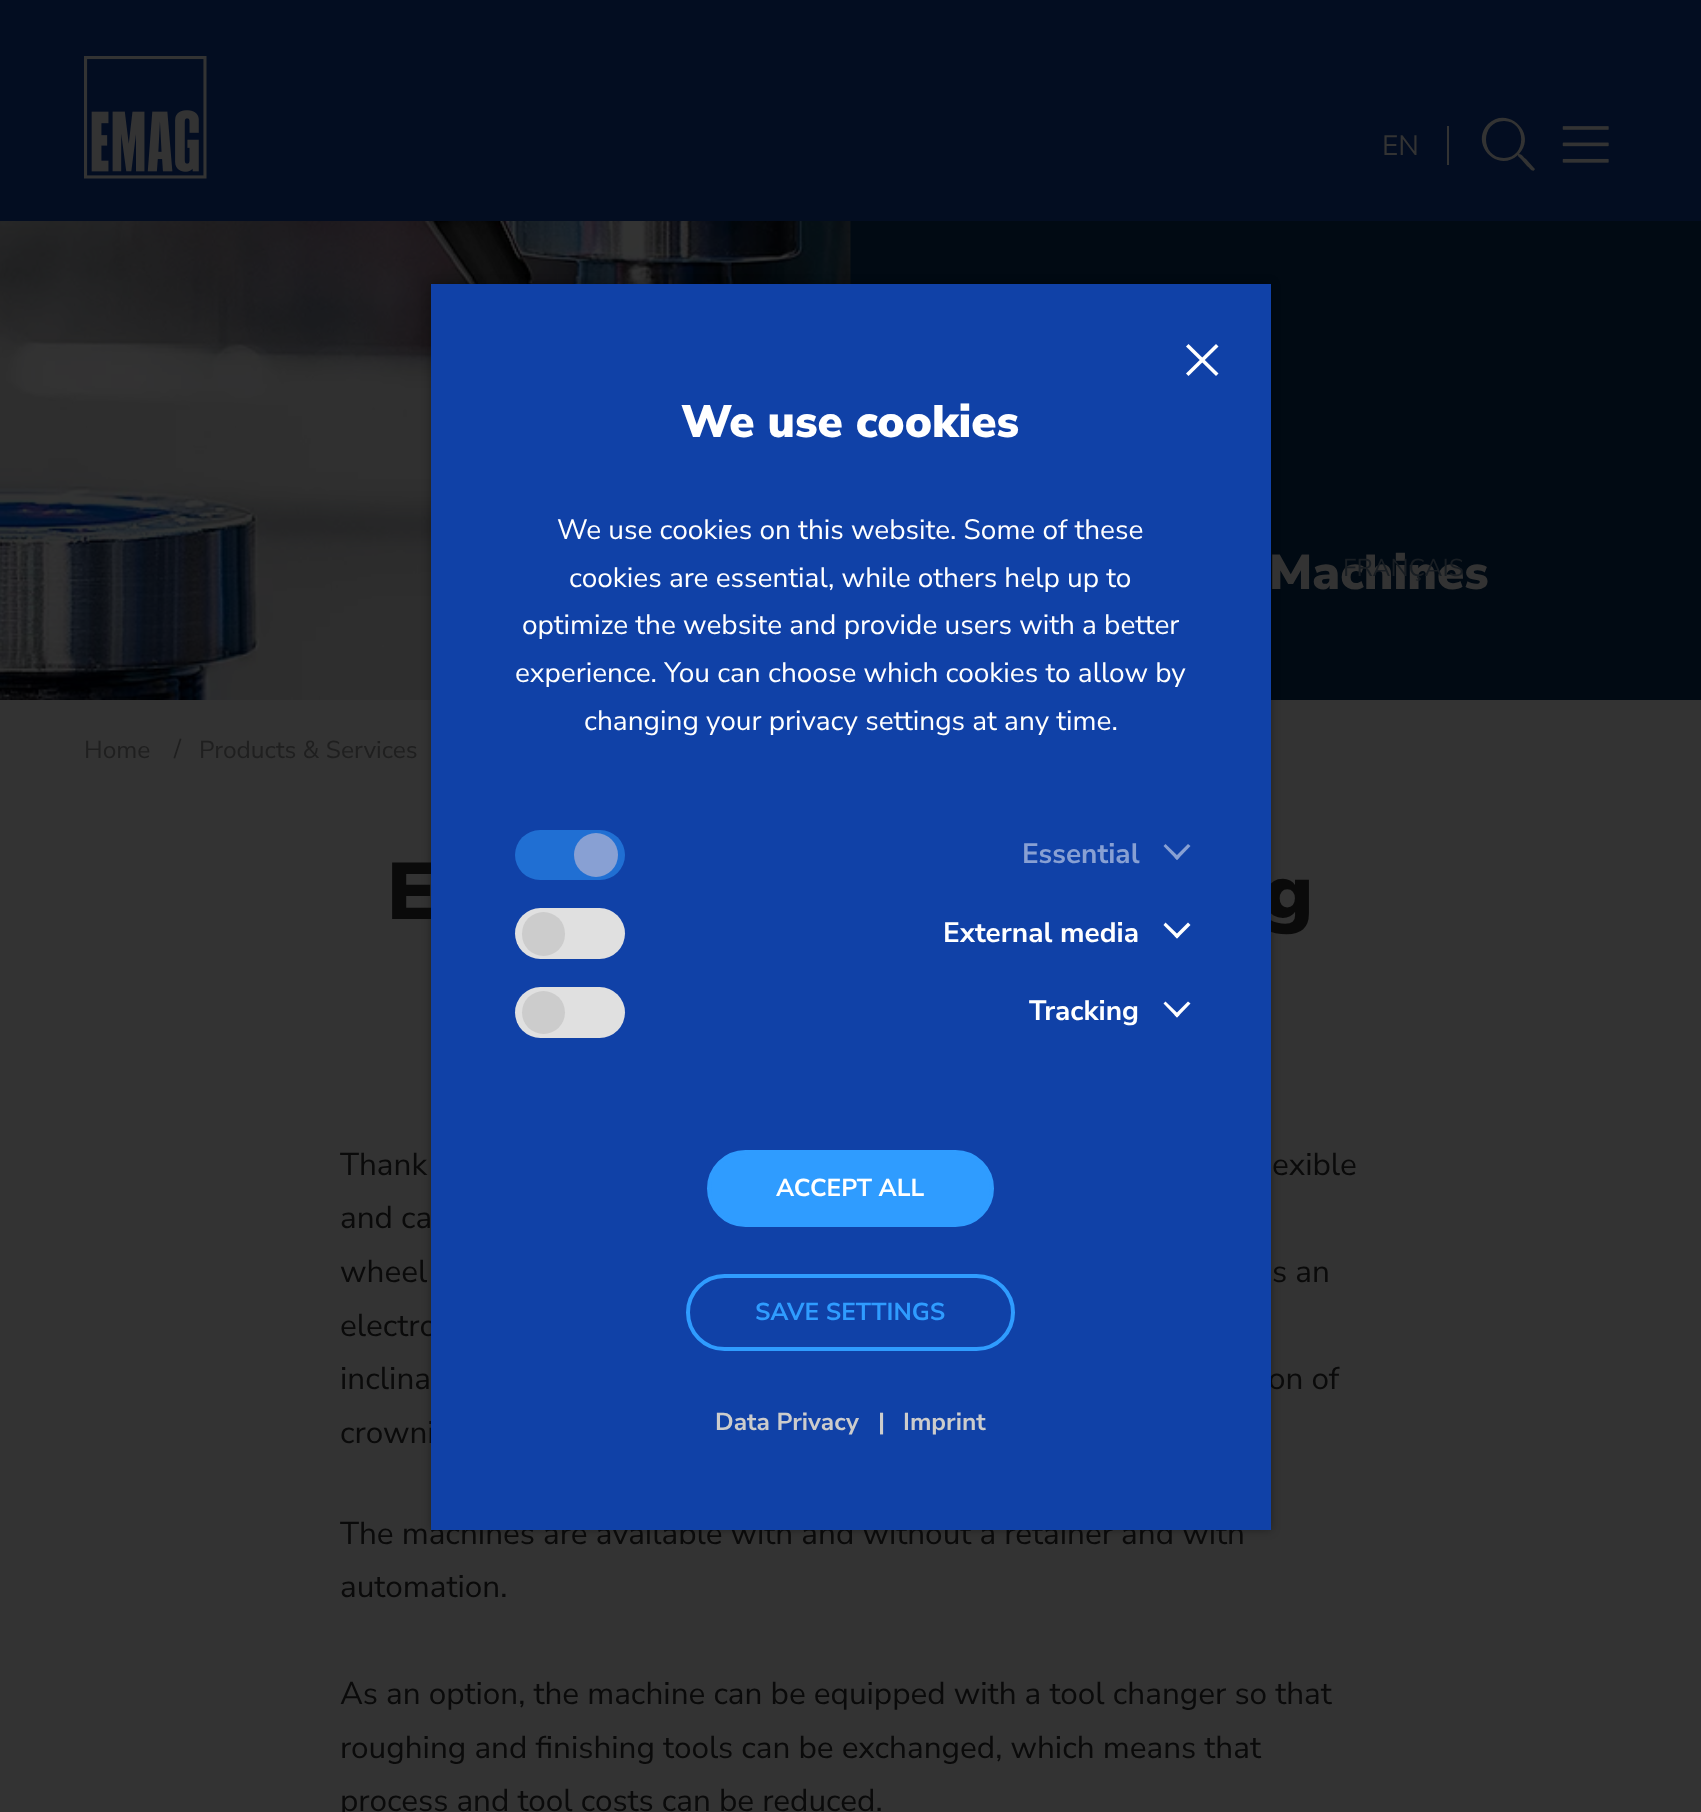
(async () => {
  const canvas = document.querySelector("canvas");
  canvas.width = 1701;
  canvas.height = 1812;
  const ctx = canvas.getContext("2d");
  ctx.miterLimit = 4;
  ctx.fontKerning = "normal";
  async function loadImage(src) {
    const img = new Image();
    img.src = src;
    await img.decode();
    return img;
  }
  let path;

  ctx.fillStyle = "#333333";
  ctx.fillRect(0, 0, 1701, 1812);
  ctx.fillStyle = "#030d21";
  ctx.fillRect(0, 0, 1701, 221);
  ctx.drawImage(await loadImage("img/1.png"), 84, 56, 123, 123);
  ctx.fillStyle = "#333333";
  ctx.fillRect(1447, 126, 2, 39);
  path = new Path2D("M1534 168L1526 159C1523 157 1522 154 1519 154C1538 134 1508 105 1488 124C1469 144 1498 174 1518 155C1518 157 1519 157 1521 159L1527 166C1529 167 1533 174 1535 169ZM1504 158C1480 158 1480 121 1504 121C1527 121 1527 158 1504 158Z");
  ctx.fill(path);
  ctx.drawImage(await loadImage("img/2.png"), 1562, 126, 47, 37);
  ctx.fillStyle = "#010a13";
  ctx.fillRect(850, 221, 851, 479);
  ctx.drawImage(await loadImage("img/3.png"), 0, 221, 851, 479);
  ctx.fillStyle = "rgba(0, 0, 0, 0.35)";
  ctx.filter = "blur(5px)";
  ctx.beginPath();
  ctx.rect(431, 284, 840, 1246);
  ctx.fill();
  ctx.filter = "none";
  ctx.font = "28px Nunito Sans";
  ctx.fillStyle = "#333333";
  ctx.fillText("EN", 1382, 155);
  ctx.font = "900 49px Nunito Sans";
  ctx.fillText("Machines", 1269, 589);
  ctx.font = "24.5px Nunito Sans";
  ctx.fillStyle = "#191e23";
  ctx.fillText("FRANÇAIS", 1343, 576);
  ctx.fillStyle = "#1f1f1f";
  for (const [text, x, y] of [
    ["Home", 84, 758],
    ["/", 174, 757],
    ["Products & Services", 199, 758],
  ]) {
    ctx.fillText(text, x, y);
  }
  ctx.font = "900 80px Nunito Sans";
  ctx.fillStyle = "#0a0a0a";
  ctx.fillText("E", 387, 919);
  ctx.fillText("g", 1263, 919);
  ctx.font = "31.5px Nunito Sans";
  for (const [text, x, y] of [
    ["Thank", 340, 1175],
    ["exible", 1272, 1175],
    ["and ca", 340, 1228],
    ["wheel", 340, 1282],
    ["s an", 1272, 1282],
    ["electro", 340, 1336],
    ["inclina", 340, 1389],
    ["on of", 1268, 1389],
    ["crowni", 340, 1443],
    ["The machines are available with and without a retainer and with", 340, 1544],
    ["automation.", 340, 1597],
    ["As an option, the machine can be equipped with a tool changer so that", 340, 1704],
    ["roughing and finishing tools can be exchanged, which means that", 340, 1758],
    ["process and tool costs can be reduced.", 340, 1811],
  ]) {
    ctx.fillText(text, x, y);
  }
  ctx.fillStyle = "#1041a7";
  ctx.fillRect(431, 284, 840, 1246);
  ctx.fillStyle = "#ffffff";
  path = new Path2D("M1216 344L1218.5 346.5L1188.5 376L1186 373.5Z");
  ctx.fill(path);
  path = new Path2D("M1186 346.5L1188.5 344L1218.5 373.5L1216 376Z");
  ctx.fill(path);
  ctx.font = "900 45.5px Nunito Sans";
  ctx.fillText("We use cookies", 681, 437);
  ctx.font = "28px Nunito Sans";
  for (const [text, x, y] of [
    ["We use cookies on this website. Some of these", 557, 539],
    ["cookies are essential, while others help up to", 569, 587],
    ["optimize the website and provide users with a better", 522, 634],
    ["experience. You can choose which cookies to allow by", 515, 682],
    ["changing your privacy settings at any time.", 584, 730],
  ]) {
    ctx.fillText(text, x, y);
  }
  ctx.fillStyle = "#206fd3";
  ctx.beginPath();
  ctx.roundRect(515, 830, 110, 50, 25);
  ctx.fill();
  ctx.fillStyle = "#88a0d3";
  ctx.beginPath();
  ctx.arc(596, 855, 22, 0, Math.PI * 2);
  ctx.fill();
  ctx.font = "bold 28px Nunito Sans";
  ctx.fillText("Essential", 1022, 863);
  path = new Path2D("M1188 844L1190.5 846L1177 860L1174.5 857.5Z");
  ctx.fill(path);
  path = new Path2D("M1165.5 844L1179.5 857.5L1177 860L1163.5 846Z");
  ctx.fill(path);
  ctx.fillStyle = "#e0e0e0";
  ctx.beginPath();
  ctx.roundRect(515, 908, 110, 51, 25.5);
  ctx.fill();
  ctx.fillStyle = "#cccccc";
  ctx.beginPath();
  ctx.roundRect(522, 912, 43, 44, 21.5);
  ctx.fill();
  ctx.fillStyle = "#ffffff";
  ctx.fillText("External media", 943, 942);
  path = new Path2D("M1188 922.5L1190.5 925L1177 938.5L1174.5 936Z");
  ctx.fill(path);
  path = new Path2D("M1165.5 922.5L1179.5 936L1177 938.5L1163.5 925Z");
  ctx.fill(path);
  ctx.fillStyle = "#e0e0e0";
  ctx.beginPath();
  ctx.roundRect(515, 987, 110, 51, 25.5);
  ctx.fill();
  ctx.fillStyle = "#cccccc";
  ctx.beginPath();
  ctx.arc(543.5, 1012.5, 21.5, 0, Math.PI * 2);
  ctx.fill();
  ctx.fillStyle = "#ffffff";
  ctx.fillText("Tracking", 1029, 1020);
  path = new Path2D("M1188 1001.5L1190.5 1003.5L1177 1017.5L1174.5 1015Z");
  ctx.fill(path);
  path = new Path2D("M1165.5 1001.5L1179.5 1015L1177 1017.5L1163.5 1003.5Z");
  ctx.fill(path);
  ctx.fillStyle = "#2f9cff";
  ctx.beginPath();
  ctx.roundRect(709, 1152, 283, 73, 36.5);
  ctx.fill();
  ctx.strokeStyle = "#2f9cff";
  ctx.lineWidth = 4;
  ctx.stroke();
  ctx.font = "bold 24.5px Nunito Sans";
  ctx.fillStyle = "#ffffff";
  ctx.fillText("ACCEPT ALL", 776, 1196);
  ctx.beginPath();
  ctx.roundRect(688, 1276, 325, 73, 36.5);
  ctx.stroke();
  ctx.fillStyle = "#2f9cff";
  ctx.fillText("SAVE SETTINGS", 755, 1320);
  ctx.fillStyle = "#cccccc";
  for (const [text, x, y] of [
    ["Data Privacy", 715, 1430],
    ["|", 878, 1430],
    ["Imprint", 903, 1430],
  ]) {
    ctx.fillText(text, x, y);
  }
})();
